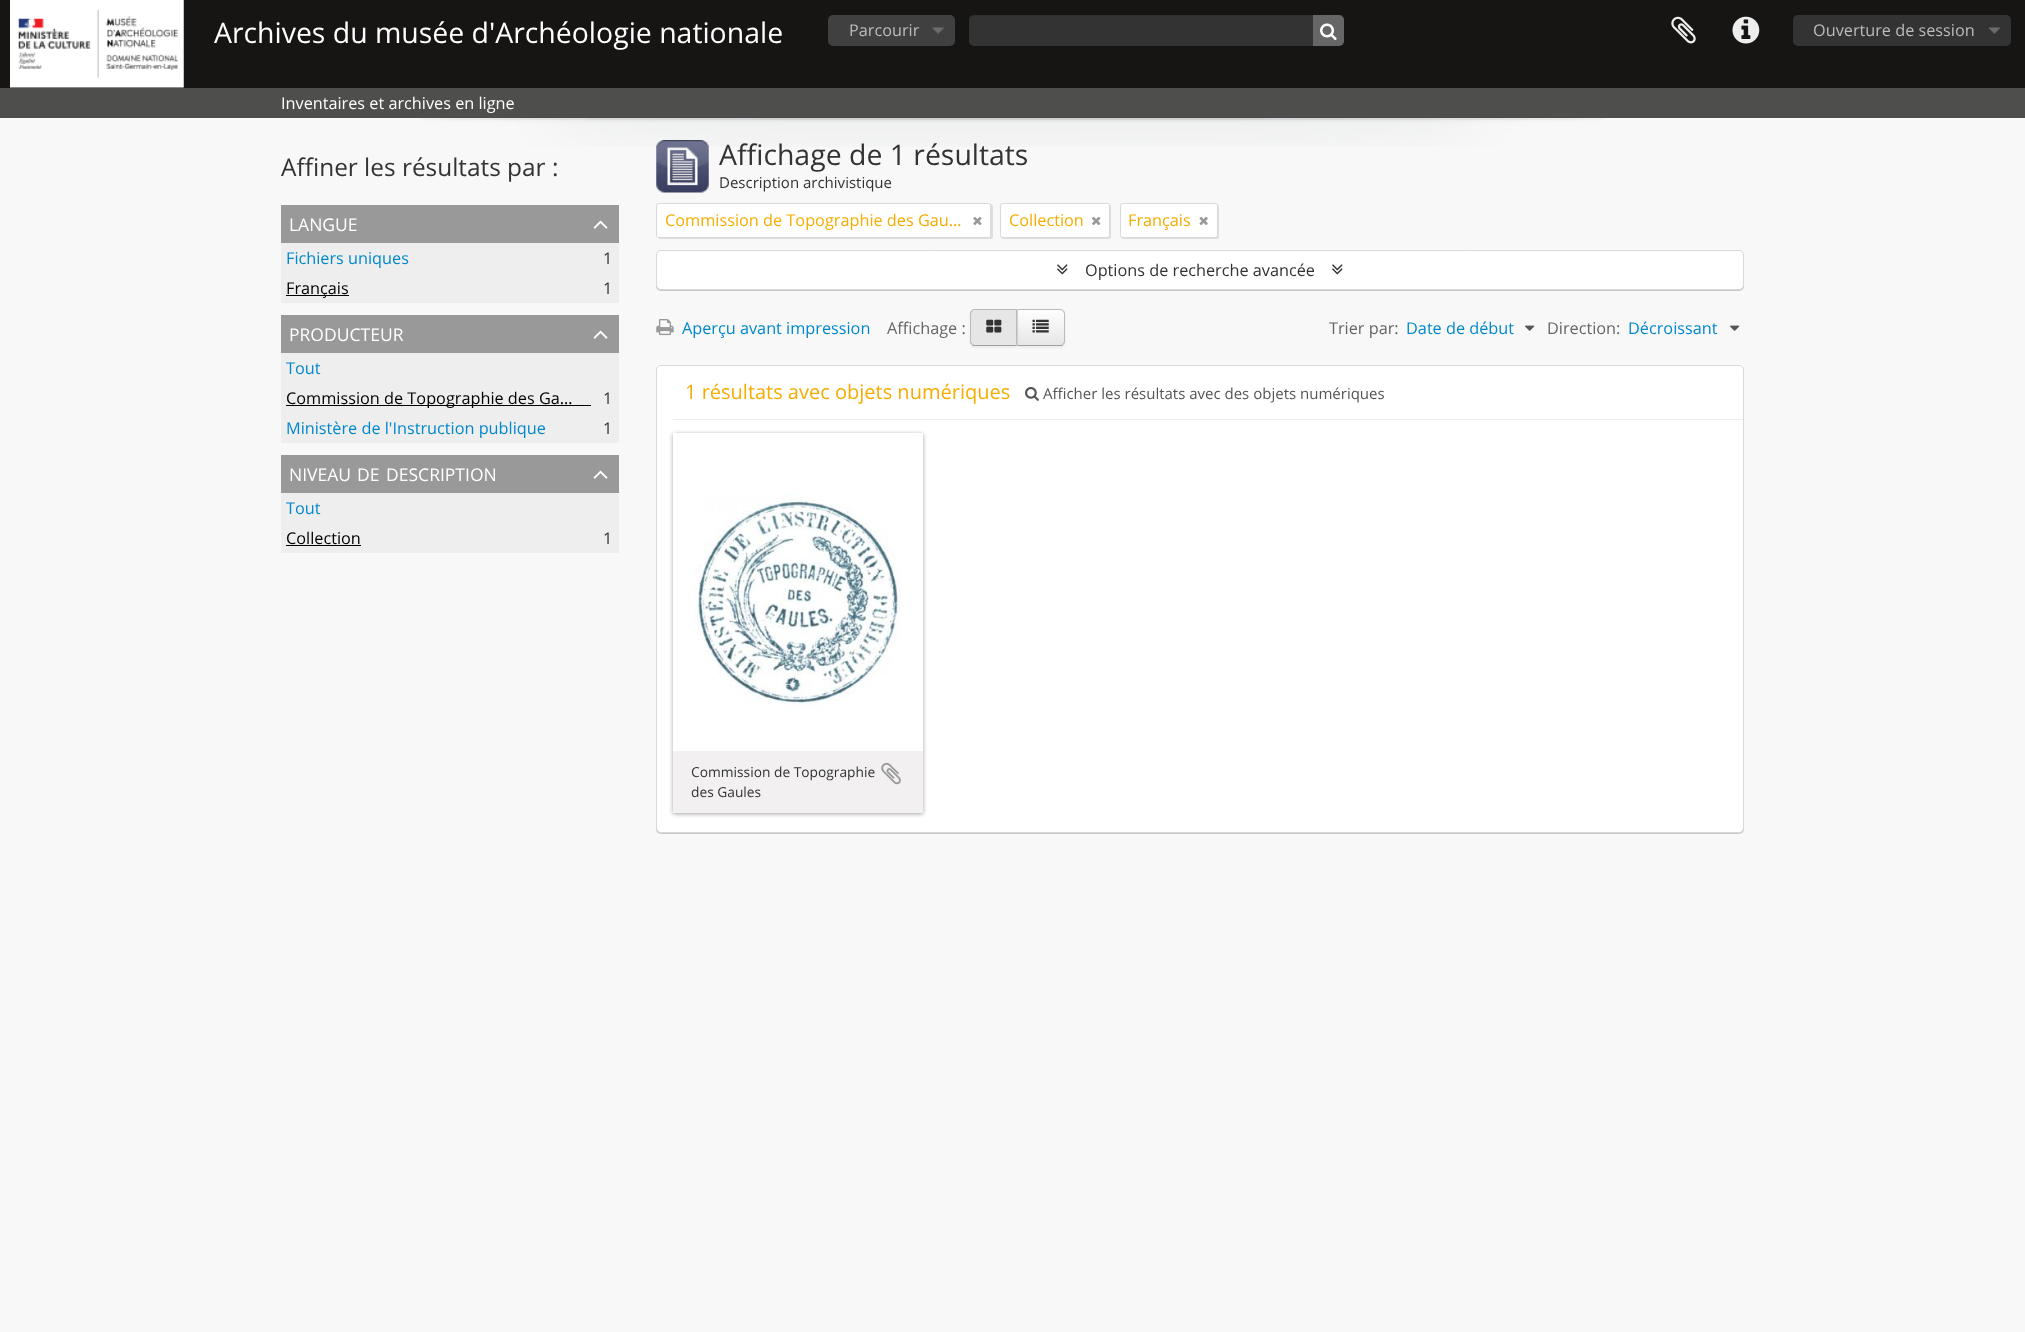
(async () => {
  const canvas = document.querySelector("canvas");
  canvas.width = 2025;
  canvas.height = 1332;
  const ctx = canvas.getContext("2d");
  ctx.miterLimit = 4;
  ctx.fontKerning = "normal";
  async function loadImage(src) {
    const img = new Image();
    img.src = src;
    await img.decode();
    return img;
  }
  let gradient, path;

  ctx.fillStyle = "#f8f8f8";
  ctx.fillRect(0, 0, 2025, 1332);
  ctx.fillStyle = "#161514";
  ctx.fillRect(0, 0, 2025, 88);
  ctx.drawImage(await loadImage("img/1.png"), 10, 0, 174, 88);
  ctx.fillStyle = "#404040";
  ctx.beginPath();
  ctx.roundRect(828, 15, 127, 31, 5);
  ctx.fill();
  ctx.drawImage(await loadImage("img/2.png"), 932, 27, 12, 7);
  ctx.fillStyle = "#333333";
  ctx.beginPath();
  ctx.roundRect(969, 15, 375, 31, 5);
  ctx.fill();
  ctx.fillStyle = "rgba(0, 0, 0, 0.07)";
  path = new Path2D("M974 16H1339C1342 16 1344 18 1344 21V20C1344 17 1342 15 1339 15H974C971 15 969 17 969 20V21C969 18 971 16 974 16Z");
  ctx.fill(path);
  ctx.fillStyle = "#666666";
  ctx.beginPath();
  ctx.roundRect(1313, 15, 31, 31, [0, 5, 5, 0]);
  ctx.fill();
  ctx.drawImage(await loadImage("img/3.png"), 1320, 23, 17, 17);
  ctx.drawImage(await loadImage("img/4.png"), 1671, 16, 25, 28);
  ctx.drawImage(await loadImage("img/5.png"), 1732, 16, 28, 28);
  ctx.fillStyle = "#333333";
  ctx.beginPath();
  ctx.roundRect(1793, 15, 218, 31, 5);
  ctx.fill();
  ctx.drawImage(await loadImage("img/6.png"), 1988, 27, 13, 7);
  ctx.drawImage(await loadImage("img/7.png"), 421, 117, 1183, 30);
  ctx.fillStyle = "rgba(22, 21, 20, 0.75)";
  ctx.fillRect(0, 88, 2025, 30);
  ctx.fillStyle = "#999999";
  ctx.fillRect(281, 205, 338, 38);
  ctx.drawImage(await loadImage("img/8.png"), 593, 220, 15, 9);
  for (const [x, y, w, h, color] of [
    [281, 243, 338, 60, "#eeeeee"],
    [286, 295, 63, 1, "#000000"],
    [281, 315, 338, 38, "#999999"],
  ]) {
    ctx.fillStyle = color;
    ctx.fillRect(x, y, w, h);
  }
  ctx.drawImage(await loadImage("img/8.png"), 593, 330, 15, 9);
  for (const [x, y, w, h, color] of [
    [281, 353, 338, 90, "#eeeeee"],
    [286, 405, 305, 1, "#000000"],
    [281, 455, 338, 38, "#999999"],
  ]) {
    ctx.fillStyle = color;
    ctx.fillRect(x, y, w, h);
  }
  ctx.drawImage(await loadImage("img/8.png"), 593, 470, 15, 9);
  ctx.fillStyle = "#eeeeee";
  ctx.fillRect(281, 493, 338, 60);
  ctx.fillStyle = "#000000";
  ctx.fillRect(286, 545, 75, 1);
  ctx.drawImage(await loadImage("img/9.png"), 656, 140, 53, 53);
  ctx.fillStyle = "rgba(0, 0, 0, 0.1)";
  ctx.filter = "blur(0.5px)";
  ctx.beginPath();
  ctx.roundRect(658, 204, 335, 35, 2.5);
  ctx.fill();
  ctx.filter = "none";
  ctx.fillStyle = "#ffffff";
  ctx.beginPath();
  ctx.roundRect(656.5, 203.5, 334, 34, 2);
  ctx.fill();
  ctx.strokeStyle = "#d9d9d9";
  ctx.stroke();
  ctx.drawImage(await loadImage("img/10.png"), 973, 216, 9, 9);
  ctx.fillStyle = "rgba(0, 0, 0, 0.1)";
  ctx.filter = "blur(0.5px)";
  ctx.beginPath();
  ctx.roundRect(1001, 204, 110, 35, 2.5);
  ctx.fill();
  ctx.filter = "none";
  ctx.fillStyle = "#ffffff";
  ctx.beginPath();
  ctx.roundRect(1000.5, 203.5, 109, 34, 2);
  ctx.fill();
  ctx.stroke();
  ctx.drawImage(await loadImage("img/11.png"), 1092, 216, 9, 9);
  ctx.fillStyle = "rgba(0, 0, 0, 0.1)";
  ctx.filter = "blur(0.5px)";
  ctx.beginPath();
  ctx.roundRect(1121, 204, 98, 35, 2.5);
  ctx.fill();
  ctx.filter = "none";
  ctx.fillStyle = "#ffffff";
  ctx.beginPath();
  ctx.roundRect(1120.5, 203.5, 97, 34, 2);
  ctx.fill();
  ctx.stroke();
  ctx.drawImage(await loadImage("img/12.png"), 1199, 216, 9, 9);
  ctx.fillStyle = "rgba(0, 0, 0, 0.2)";
  ctx.filter = "blur(0.5px)";
  ctx.beginPath();
  ctx.roundRect(656, 251, 1088, 40, 5);
  ctx.fill();
  ctx.filter = "none";
  ctx.fillStyle = "#ffffff";
  ctx.beginPath();
  ctx.roundRect(656.5, 250.5, 1087, 39, 4.5);
  ctx.fill();
  ctx.stroke();
  ctx.drawImage(await loadImage("img/13.png"), 1057, 264, 11, 11);
  ctx.drawImage(await loadImage("img/13.png"), 1332, 264, 11, 11);
  ctx.drawImage(await loadImage("img/14.png"), 656, 319, 18, 17);
  ctx.fillStyle = "rgba(0, 0, 0, 0.05)";
  ctx.filter = "blur(1px)";
  ctx.beginPath();
  ctx.roundRect(1016, 310, 49, 38, 5);
  ctx.fill();
  ctx.filter = "none";
  ctx.save();
  ctx.beginPath();
  ctx.roundRect(1016, 309, 49, 37, [0, 5, 5, 0]);
  ctx.clip();
  gradient = ctx.createLinearGradient(1041, 310, 1041, 345);
  gradient.addColorStop(0, "#ffffff");
  gradient.addColorStop(1, "#e6e6e6");
  ctx.fillStyle = gradient;
  ctx.fillRect(1018, 310, 47, 35);
  ctx.restore();
  ctx.fillStyle = "#bbbbbb";
  path = new Path2D("M1018 310H1060C1061 310 1062 310 1063 311V310C1063 309 1061 309 1060 309H1016Z");
  ctx.fill(path);
  path = new Path2D("M1063.5 310.5C1064.5 311 1065 312.5 1065 314V341C1065 342.5 1064.5 344 1063.5 344.5L1062.5 344C1063.5 343 1064 342 1064 341V314C1064 313 1063.5 312 1062.5 311Z");
  ctx.fill(path);
  ctx.fillStyle = "#a2a2a2";
  path = new Path2D("M1063 345C1063 346 1061 346 1060 346H1016L1018 344V345H1060C1061 345 1062 345 1063 344Z");
  ctx.fill(path);
  ctx.fillStyle = "rgba(0, 0, 0, 0.05)";
  ctx.filter = "blur(1px)";
  ctx.beginPath();
  ctx.roundRect(970, 310, 48, 38, 5);
  ctx.fill();
  ctx.filter = "none";
  ctx.fillStyle = "#e6e6e6";
  ctx.beginPath();
  ctx.roundRect(970, 309, 48, 37, [5, 0, 0, 5]);
  ctx.fill();
  ctx.fillStyle = "#bbbbbb";
  path = new Path2D("M975 309C974 309 972 309 972 310V311C973 310 974 310 975 310H1016L1017 309Z");
  ctx.fill(path);
  path = new Path2D("M1017.5 346L1016 345V310L1017 309H1017.5Z");
  ctx.fill(path);
  ctx.fillStyle = "#a2a2a2";
  path = new Path2D("M1017 346H975C974 346 972 346 972 345V344C973 345 974 345 975 345H1016Z");
  ctx.fill(path);
  ctx.fillStyle = "#bbbbbb";
  path = new Path2D("M970 314V341C970 342.5 970.5 344 971.5 344.5L972.5 344C971.5 343 971 342 971 341V314C971 313 971.5 312 972.5 311L971.5 310.5C970.5 311 970 312.5 970 314Z");
  ctx.fill(path);
  ctx.drawImage(await loadImage("img/15.png"), 986, 319, 16, 14);
  ctx.drawImage(await loadImage("img/16.png"), 1032, 319, 17, 14);
  ctx.drawImage(await loadImage("img/17.png"), 1525, 325, 10, 6);
  ctx.drawImage(await loadImage("img/17.png"), 1730, 325, 10, 6);
  ctx.fillStyle = "rgba(0, 0, 0, 0.2)";
  ctx.filter = "blur(0.5px)";
  ctx.beginPath();
  ctx.roundRect(656, 366, 1088, 468, 5);
  ctx.fill();
  ctx.filter = "none";
  ctx.fillStyle = "#ffffff";
  ctx.beginPath();
  ctx.roundRect(656.5, 365.5, 1087, 467, 4.5);
  ctx.fill();
  ctx.stroke();
  ctx.fillStyle = "#eeeeee";
  ctx.fillRect(673, 419, 1070, 1);
  ctx.drawImage(await loadImage("img/18.png"), 1025, 387, 14, 14);
  ctx.fillStyle = "rgba(25, 25, 25, 0.4)";
  ctx.filter = "blur(2px)";
  ctx.beginPath();
  ctx.rect(673, 434, 250, 380);
  ctx.fill();
  ctx.filter = "none";
  ctx.fillStyle = "#ffffff";
  ctx.fillRect(673, 433, 250, 318);
  ctx.drawImage(await loadImage("img/19.png"), 693, 491, 208, 222);
  ctx.fillStyle = "#f2f0f0";
  ctx.fillRect(673, 751, 250, 62);
  ctx.drawImage(await loadImage("img/20.png"), 881, 762, 20, 23);
  ctx.font = "28.4px Open Sans";
  ctx.fillStyle = "#ffffff";
  ctx.fillText("Archives du musée d'Archéologie nationale", 214, 43);
  ctx.font = "16.25px Open Sans";
  ctx.fillStyle = "#bbbbbb";
  ctx.fillText("Parcourir", 849, 36);
  ctx.fillText("Ouverture de session", 1813, 36);
  ctx.fillStyle = "#ffffff";
  ctx.fillText("Inventaires et archives en ligne", 281, 109);
  ctx.font = "24.4px Open Sans";
  ctx.fillStyle = "#333333";
  ctx.fillText("Affiner les résultats par :", 281, 176);
  ctx.font = "17.5px Open Sans";
  ctx.fillStyle = "#ffffff";
  ctx.fillText("LANGUE", 289, 231);
  ctx.font = "16.25px Open Sans";
  ctx.fillStyle = "#0088cc";
  ctx.fillText("Fichiers uniques", 286, 264);
  ctx.fillStyle = "#333333";
  ctx.fillText("1", 603, 264);
  ctx.fillStyle = "#000000";
  ctx.fillText("Français", 286, 294);
  ctx.fillStyle = "#333333";
  ctx.fillText("1", 603, 294);
  ctx.font = "17.5px Open Sans";
  ctx.fillStyle = "#ffffff";
  ctx.fillText("PRODUCTEUR", 289, 341);
  ctx.font = "16.25px Open Sans";
  ctx.fillStyle = "#0088cc";
  ctx.fillText("Tout", 286, 374);
  ctx.fillStyle = "#000000";
  ctx.fillText("Commission de Topographie des Ga…", 286, 404);
  ctx.fillStyle = "#333333";
  ctx.fillText("1", 603, 404);
  ctx.fillStyle = "#0088cc";
  ctx.fillText("Ministère de l'Instruction publique", 286, 434);
  ctx.fillStyle = "#333333";
  ctx.fillText("1", 603, 434);
  ctx.font = "17.5px Open Sans";
  ctx.fillStyle = "#ffffff";
  for (const [text, x, y] of [
    ["NIVEAU", 289, 481],
    ["DE", 357, 481],
    ["DESCRIPTION", 386, 481],
  ]) {
    ctx.fillText(text, x, y);
  }
  ctx.font = "16.25px Open Sans";
  ctx.fillStyle = "#0088cc";
  ctx.fillText("Tout", 286, 514);
  ctx.fillStyle = "#000000";
  ctx.fillText("Collection", 286, 544);
  ctx.fillStyle = "#333333";
  ctx.fillText("1", 603, 544);
  ctx.font = "28.4px Open Sans";
  ctx.fillText("Affichage de 1 résultats", 719, 165);
  ctx.font = "15px Open Sans";
  ctx.fillText("Description archivistique", 719, 188);
  ctx.font = "16.25px Open Sans";
  ctx.fillStyle = "#f6ac00";
  for (const [text, x, y] of [
    ["Commission de Topographie des Gau…", 665, 226],
    ["Collection", 1009, 226],
    ["Français", 1128, 226],
  ]) {
    ctx.fillText(text, x, y);
  }
  ctx.fillStyle = "#333333";
  ctx.fillText("Options de recherche avancée", 1085, 276);
  ctx.fillStyle = "#0088cc";
  ctx.fillText("Aperçu avant impression", 682, 334);
  ctx.fillStyle = "#666666";
  ctx.fillText("Affichage :", 887, 334);
  ctx.fillText("Trier par:", 1329, 334);
  ctx.fillStyle = "#0088cc";
  ctx.fillText("Date de début", 1406, 334);
  ctx.fillStyle = "#666666";
  ctx.fillText("Direction:", 1547, 334);
  ctx.fillStyle = "#0088cc";
  ctx.fillText("Décroissant", 1628, 334);
  ctx.font = "20px Open Sans";
  ctx.fillStyle = "#f6ac00";
  ctx.fillText("1 résultats avec objets numériques", 685, 399);
  ctx.font = "15px Open Sans";
  ctx.fillStyle = "#555555";
  ctx.fillText("Afficher les résultats avec des objets numériques", 1043, 399);
  ctx.font = "13.75px Open Sans";
  ctx.fillStyle = "#333333";
  ctx.fillText("Commission de Topographie", 691, 777);
  ctx.fillText("des Gaules", 691, 797);
})();
